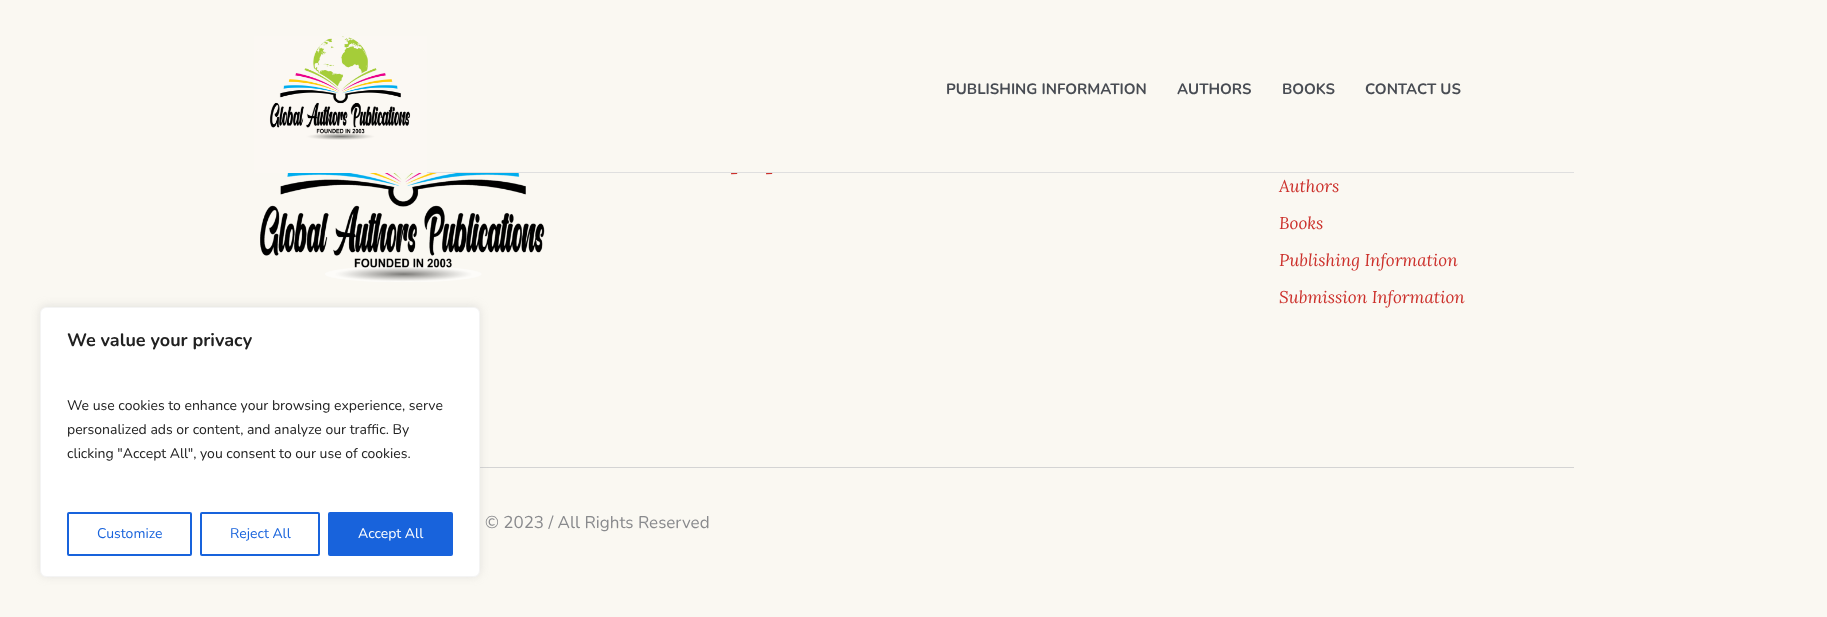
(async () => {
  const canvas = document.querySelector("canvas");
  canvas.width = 1827;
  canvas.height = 617;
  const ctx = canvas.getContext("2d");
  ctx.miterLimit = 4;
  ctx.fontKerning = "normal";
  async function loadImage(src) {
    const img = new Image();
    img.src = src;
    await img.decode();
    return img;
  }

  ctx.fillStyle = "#faf8f2";
  ctx.fillRect(0, 0, 1827, 617);
  ctx.fillStyle = "#d4d4d4";
  ctx.fillRect(480, 467, 1094, 1);
  ctx.fillStyle = "rgba(172, 171, 171, 0.3)";
  ctx.filter = "blur(5px)";
  ctx.beginPath();
  ctx.roundRect(40, 306, 440, 270, 6);
  ctx.fill();
  ctx.filter = "none";
  ctx.fillStyle = "#ffffff";
  ctx.beginPath();
  ctx.roundRect(40.5, 307.5, 439, 269, 5.5);
  ctx.fill();
  ctx.strokeStyle = "#f4f4f4";
  ctx.stroke();
  ctx.beginPath();
  ctx.roundRect(68, 513, 123, 42, 1);
  ctx.strokeStyle = "#1863dc";
  ctx.lineWidth = 2;
  ctx.stroke();
  ctx.beginPath();
  ctx.roundRect(201, 513, 118, 42, 1);
  ctx.stroke();
  ctx.fillStyle = "#1863dc";
  ctx.beginPath();
  ctx.roundRect(329, 513, 123, 42, 1);
  ctx.fill();
  ctx.stroke();
  ctx.fillStyle = "#dfdfdf";
  ctx.fillRect(426, 172, 1148, 1);
  ctx.drawImage(await loadImage("img/1.png"), 254, 36, 173, 137);
  ctx.drawImage(await loadImage("img/2.png"), 260, 173, 285, 109);
  ctx.font = "bold 18px Nunito";
  ctx.fillStyle = "#212121";
  ctx.fillText("We value your privacy", 67, 346);
  ctx.font = "14px Nunito";
  for (const [text, x, y] of [
    ["We use cookies to enhance your browsing experience, serve", 67, 410],
    ["personalized ads or content, and analyze our traffic. By", 67, 434],
    ["clicking \"Accept All\", you consent to our use of cookies.", 67, 458],
  ]) {
    ctx.fillText(text, x, y);
  }
  ctx.fillStyle = "#1863dc";
  ctx.fillText("Customize", 97, 538);
  ctx.fillText("Reject All", 230, 538);
  ctx.fillStyle = "#ffffff";
  ctx.fillText("Accept All", 358, 538);
  ctx.font = "bold 15px Nunito";
  ctx.fillStyle = "#484c53";
  for (const [text, x, y] of [
    ["PUBLISHING INFORMATION", 946, 94],
    ["AUTHORS", 1177, 94],
    ["BOOKS", 1282, 94],
    ["CONTACT US", 1365, 94],
  ]) {
    ctx.fillText(text, x, y);
  }
  ctx.font = "italic 17px Lora";
  ctx.fillStyle = "#cc302b";
  for (const [text, x, y] of [
    ["-", 730, 179],
    ["-", 765, 179],
    ["Authors", 1279, 192],
    ["Books", 1279, 229],
    ["Publishing Information", 1279, 266],
    ["Submission Information", 1279, 303],
  ]) {
    ctx.fillText(text, x, y);
  }
  ctx.font = "17px Nunito";
  ctx.fillStyle = "#898a8d";
  ctx.fillText("© 2023 / All Rights Reserved", 485, 528);
})();
